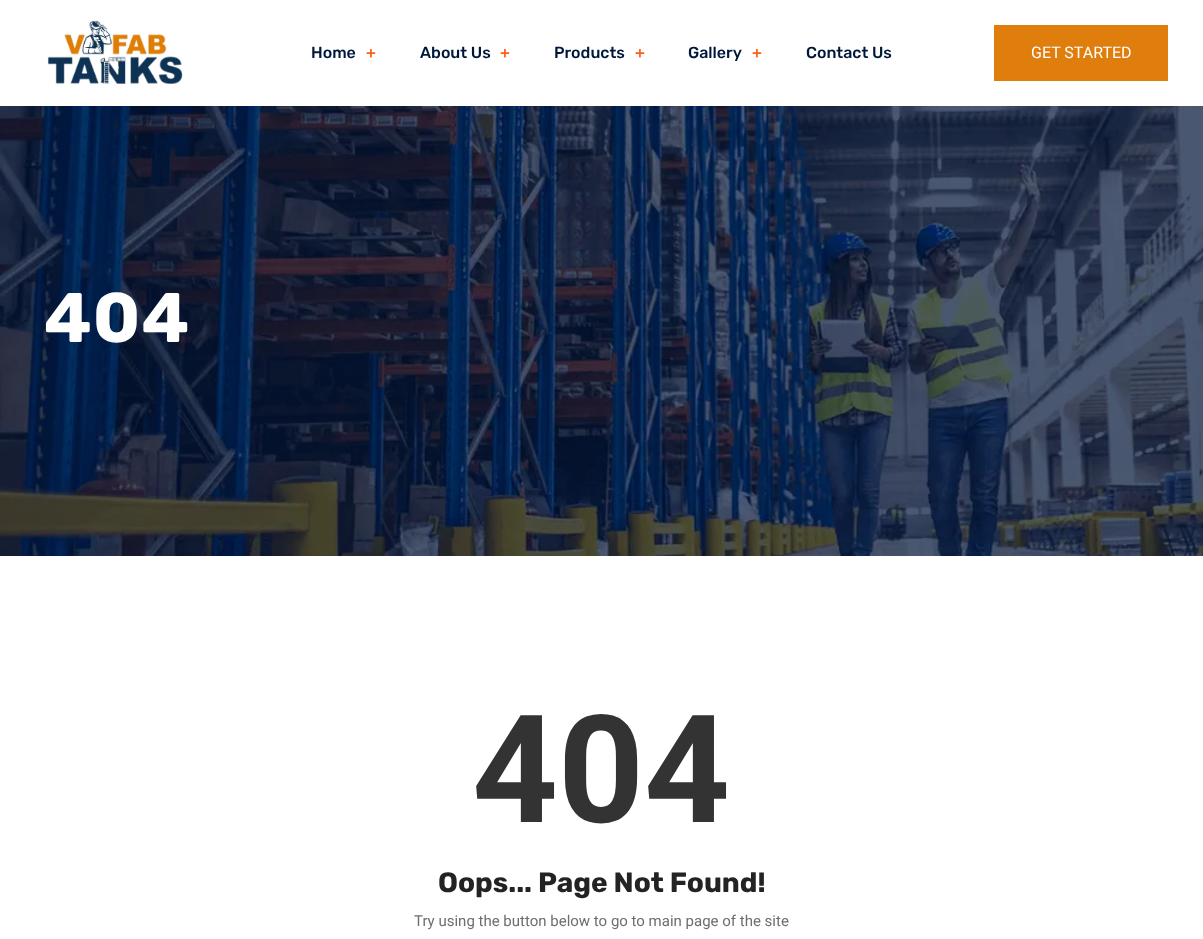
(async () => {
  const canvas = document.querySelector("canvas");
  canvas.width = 1203;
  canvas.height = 939;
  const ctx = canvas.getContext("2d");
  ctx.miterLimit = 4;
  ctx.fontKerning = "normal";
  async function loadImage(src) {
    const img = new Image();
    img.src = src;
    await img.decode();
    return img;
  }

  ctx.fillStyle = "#ffffff";
  ctx.fillRect(0, 0, 1203, 939);
  ctx.drawImage(await loadImage("img/1.png"), 47, 20, 136, 65);
  ctx.fillStyle = "#df7e0c";
  ctx.fillRect(994, 25, 174, 56);
  ctx.drawImage(await loadImage("img/2.png"), 0, 106, 1203, 450);
  ctx.font = "500 16px Rubik";
  ctx.fillStyle = "#00173c";
  ctx.fillText("Home", 311, 58);
  ctx.fillStyle = "#ff5e15";
  ctx.fillText("+", 366, 58);
  ctx.fillStyle = "#00173c";
  ctx.fillText("About Us", 420, 58);
  ctx.fillStyle = "#ff5e15";
  ctx.fillText("+", 500, 58);
  ctx.fillStyle = "#00173c";
  ctx.fillText("Products", 554, 58);
  ctx.fillStyle = "#ff5e15";
  ctx.fillText("+", 635, 58);
  ctx.fillStyle = "#00173c";
  ctx.fillText("Gallery", 688, 58);
  ctx.fillStyle = "#ff5e15";
  ctx.fillText("+", 752, 58);
  ctx.fillStyle = "#00173c";
  ctx.fillText("Contact Us", 806, 58);
  ctx.font = "16px Roboto";
  ctx.fillStyle = "#ffffff";
  ctx.fillText("GET STARTED", 1031, 58);
  ctx.letterSpacing = "1px";
  ctx.font = "bold 70px Rubik";
  ctx.fillText("404", 44, 342);
  ctx.letterSpacing = "0px";
  ctx.font = "bold 150px Roboto";
  ctx.fillStyle = "#333333";
  ctx.fillText("404", 472, 822);
  ctx.font = "bold 28px Rubik";
  ctx.fillStyle = "#232323";
  ctx.fillText("Oops... Page Not Found!", 438, 892);
  ctx.font = "15px Roboto";
  ctx.fillStyle = "#6e6e6e";
  ctx.fillText("Try using the button below to go to main page of the site", 414, 926);
})();
